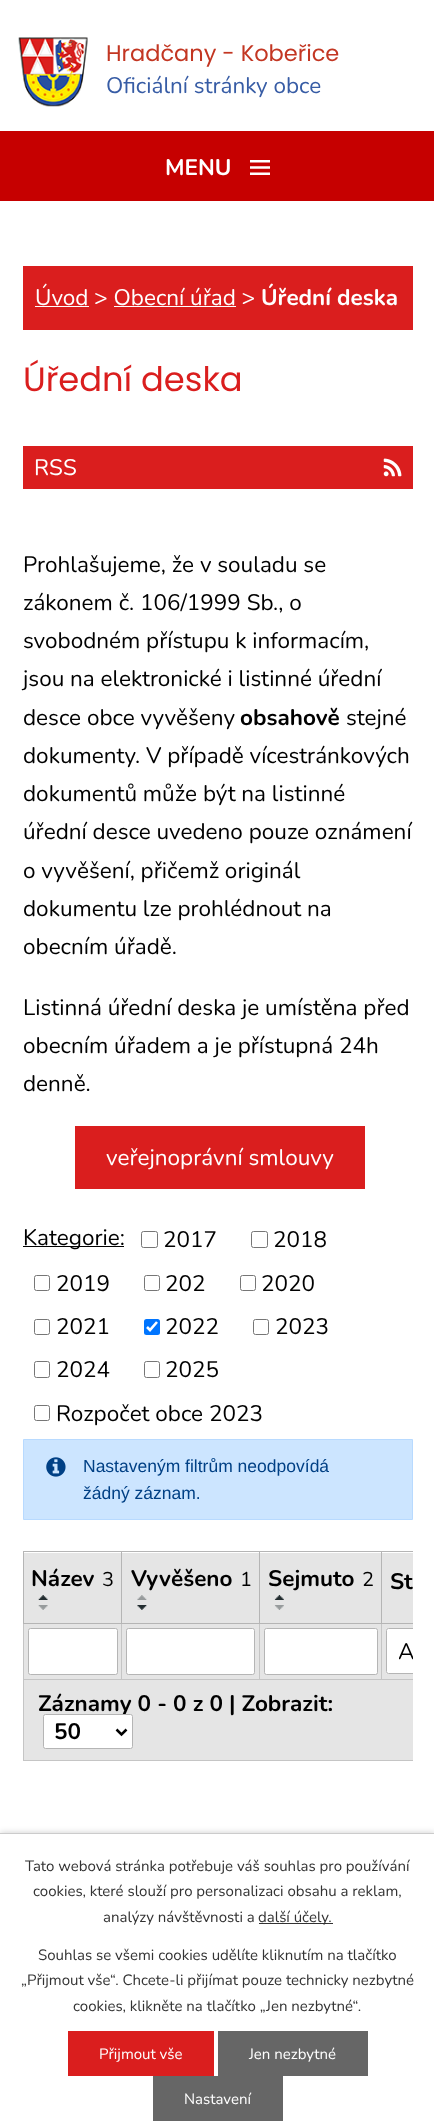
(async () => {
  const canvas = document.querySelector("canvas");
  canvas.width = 434;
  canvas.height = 2128;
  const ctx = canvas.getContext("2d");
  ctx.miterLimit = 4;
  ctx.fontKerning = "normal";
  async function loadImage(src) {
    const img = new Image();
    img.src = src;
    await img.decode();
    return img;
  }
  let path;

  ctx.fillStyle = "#ffffff";
  ctx.fillRect(0, 0, 434, 2128);
  ctx.drawImage(await loadImage("img/1.png"), 18, 37, 70, 70);
  ctx.fillStyle = "#c60000";
  ctx.fillRect(0, 131, 434, 70);
  ctx.drawImage(await loadImage("img/2.png"), 250, 160, 20, 15);
  for (const [x, y, w, h, color] of [
    [23, 266, 390, 64, "#da1e1e"],
    [35, 306, 54, 1, "#ffffff"],
    [114, 306, 122, 1, "#ffffff"],
    [23, 446, 390, 43, "#da1e1e"],
  ]) {
    ctx.fillStyle = color;
    ctx.fillRect(x, y, w, h);
  }
  ctx.drawImage(await loadImage("img/3.png"), 383, 458, 19, 19);
  ctx.fillRect(75, 1126, 290, 63);
  ctx.fillStyle = "#000000";
  ctx.fillRect(23, 1246, 101, 1);
  ctx.beginPath();
  ctx.roundRect(141.5, 1231.5, 16, 16, 2);
  ctx.strokeStyle = "#767676";
  ctx.stroke();
  ctx.beginPath();
  ctx.roundRect(251.5, 1231.5, 16, 16, 2);
  ctx.stroke();
  ctx.beginPath();
  ctx.roundRect(34.5, 1275.5, 15, 15, 2);
  ctx.stroke();
  ctx.beginPath();
  ctx.roundRect(144.5, 1275.5, 15, 15, 2);
  ctx.stroke();
  ctx.beginPath();
  ctx.roundRect(240.5, 1275.5, 15, 15, 2);
  ctx.stroke();
  ctx.beginPath();
  ctx.roundRect(34.5, 1319.5, 15, 15, 2);
  ctx.stroke();
  ctx.fillStyle = "#0075ff";
  ctx.beginPath();
  ctx.roundRect(144, 1319, 16, 16, 2.5);
  ctx.fill();
  path = new Path2D("M147 1327L150 1330L157 1322");
  ctx.strokeStyle = "#ffffff";
  ctx.lineWidth = 2.6;
  ctx.stroke(path);
  ctx.beginPath();
  ctx.roundRect(253.5, 1319.5, 15, 15, 2);
  ctx.strokeStyle = "#767676";
  ctx.lineWidth = 1;
  ctx.stroke();
  ctx.beginPath();
  ctx.roundRect(34.5, 1361.5, 15, 16, 2);
  ctx.stroke();
  ctx.beginPath();
  ctx.roundRect(144.5, 1361.5, 15, 16, 2);
  ctx.stroke();
  ctx.beginPath();
  ctx.roundRect(34.5, 1405.5, 15, 15, 2);
  ctx.stroke();
  ctx.fillStyle = "#cce5ff";
  ctx.beginPath();
  ctx.rect(23.5, 1439.5, 389, 80);
  ctx.fill();
  ctx.strokeStyle = "#b8daff";
  ctx.stroke();
  ctx.drawImage(await loadImage("img/4.png"), 46, 1457, 20, 20);
  for (const [x, y, w, h, color] of [
    [24, 1553, 235, 70, "#e5e5e5"],
    [381, 1551, 32, 1, "#b5b5b5"],
    [260, 1553, 153, 70, "#e5e5e5"],
    [24, 1624, 389, 55, "#e5e5e5"],
    [23, 1679, 390, 1, "#c5c5c5"],
    [381, 1623, 1, 57, "#c5c5c5"],
    [381, 1623, 32, 1, "#b5b5b5"],
    [381, 1551, 1, 73, "#b5b5b5"],
    [259, 1551, 124, 1, "#b5b5b5"],
    [259, 1623, 1, 57, "#c5c5c5"],
    [259, 1623, 124, 1, "#b5b5b5"],
    [259, 1551, 1, 73, "#b5b5b5"],
    [121, 1551, 139, 1, "#b5b5b5"],
    [121, 1623, 1, 57, "#c5c5c5"],
    [121, 1623, 139, 1, "#b5b5b5"],
    [121, 1551, 1, 73, "#b5b5b5"],
    [23, 1551, 100, 1, "#b5b5b5"],
    [23, 1760, 390, 1, "#c5c5c5"],
    [23, 1623, 1, 138, "#c5c5c5"],
    [23, 1623, 100, 1, "#b5b5b5"],
    [23, 1551, 1, 73, "#b5b5b5"],
  ]) {
    ctx.fillStyle = color;
    ctx.fillRect(x, y, w, h);
  }
  ctx.drawImage(await loadImage("img/5.png"), 38, 1595, 10, 5);
  ctx.drawImage(await loadImage("img/6.png"), 38, 1605, 10, 5);
  ctx.drawImage(await loadImage("img/7.png"), 137, 1595, 10, 5);
  ctx.drawImage(await loadImage("img/8.png"), 137, 1605, 10, 5);
  ctx.drawImage(await loadImage("img/9.png"), 274, 1595, 10, 5);
  ctx.drawImage(await loadImage("img/10.png"), 274, 1605, 10, 5);
  ctx.fillStyle = "#ffffff";
  ctx.beginPath();
  ctx.roundRect(28.5, 1628.5, 89, 46, 2);
  ctx.fill();
  ctx.strokeStyle = "#b5b5b5";
  ctx.stroke();
  ctx.beginPath();
  ctx.roundRect(126.5, 1628.5, 128, 46, 2);
  ctx.fill();
  ctx.stroke();
  ctx.beginPath();
  ctx.roundRect(264.5, 1628.5, 113, 46, 2);
  ctx.fill();
  ctx.stroke();
  ctx.beginPath();
  ctx.roundRect(386, 1628, 27, 46, [2.5, 0, 0, 2.5]);
  ctx.fill();
  ctx.save();
  ctx.beginPath();
  ctx.rect(23, 1529, 390, 232);
  ctx.clip();
  ctx.beginPath();
  ctx.roundRect(386.5, 1628.5, 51, 45, 2);
  ctx.stroke();
  ctx.restore();
  ctx.fillStyle = "#e5e5e5";
  ctx.fillRect(24, 1680, 389, 80);
  ctx.fillStyle = "rgba(0, 0, 0, 0.2)";
  ctx.filter = "blur(3px)";
  ctx.beginPath();
  ctx.rect(0, 1833, 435, 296);
  ctx.fill();
  ctx.filter = "none";
  for (const [x, y, w, h, color] of [
    [0, 1834, 434, 294, "#ffffff"],
    [0, 1833, 434, 1, "#cccccc"],
    [259, 1923, 74, 1, "#333333"],
    [68, 2031, 146, 45, "#da1e1e"],
    [218, 2031, 150, 45, "#666666"],
    [153, 2076, 130, 45, "#666666"],
  ]) {
    ctx.fillStyle = color;
    ctx.fillRect(x, y, w, h);
  }
  ctx.font = "22.5px Poppins";
  ctx.fillStyle = "#c33622";
  ctx.fillText("Hradčany - Kobeřice", 106, 61);
  ctx.font = "22.5px Nunito";
  ctx.fillStyle = "#375ca5";
  ctx.fillText("Oficiální stránky obce", 106, 93);
  ctx.font = "bold 22.5px Nunito";
  ctx.fillStyle = "#ffffff";
  ctx.fillText("MENU", 165, 175);
  ctx.font = "22.5px Nunito";
  ctx.fillText("Úvod > Obecní úřad >", 35, 305);
  ctx.font = "bold 22.5px Nunito";
  ctx.fillText("Úřední deska", 261, 305);
  ctx.font = "33.75px Poppins";
  ctx.fillStyle = "#da1e1e";
  ctx.fillText("Úřední deska", 23, 391);
  ctx.font = "22.5px Nunito";
  ctx.fillStyle = "#ffffff";
  ctx.fillText("RSS", 34, 475);
  ctx.fillStyle = "#000000";
  for (const [text, x, y] of [
    ["Prohlašujeme, že v souladu se", 23, 572],
    ["zákonem č. 106/1999 Sb., o", 23, 610],
    ["svobodném přístupu k informacím,", 23, 648],
    ["jsou na elektronické i listinné úřední", 23, 686],
    ["desce obce vyvěšeny", 23, 725],
  ]) {
    ctx.fillText(text, x, y);
  }
  ctx.font = "bold 22.5px Nunito";
  ctx.fillText("obsahově", 240, 725);
  ctx.font = "22.5px Nunito";
  for (const [text, x, y] of [
    ["stejné", 346, 725],
    ["dokumenty. V případě vícestránkových", 23, 763],
    ["dokumentů může být na listinné", 23, 801],
    ["úřední desce uvedeno pouze oznámení", 23, 839],
    ["o vyvěšení, přičemž originál", 23, 878],
    ["dokumentu lze prohlédnout na", 23, 916],
    ["obecním úřadě.", 23, 954],
    ["Listinná úřední deska je umístěna před", 23, 1015],
    ["obecním úřadem a je přístupná 24h", 23, 1053],
    ["denně.", 23, 1091],
  ]) {
    ctx.fillText(text, x, y);
  }
  ctx.fillStyle = "#ffffff";
  ctx.fillText("veřejnoprávní smlouvy", 106, 1165);
  ctx.fillStyle = "#000000";
  for (const [text, x, y] of [
    ["Kategorie:", 23, 1245],
    ["2017", 163, 1247],
    ["2018", 273, 1247],
    ["2019", 56, 1291],
    ["202", 165, 1291],
    ["2020", 261, 1291],
    ["2021", 56, 1334],
    ["2022", 165, 1334],
    ["2023", 275, 1334],
    ["2024", 56, 1377],
    ["2025", 165, 1377],
    ["Rozpočet obce 2023", 56, 1421],
  ]) {
    ctx.fillText(text, x, y);
  }
  ctx.font = "17.5px Liberation Sans";
  ctx.fillStyle = "#004085";
  ctx.fillText("Nastaveným filtrům neodpovídá", 83, 1472);
  ctx.fillText("žádný záznam.", 83, 1499);
  ctx.font = "bold 22.5px Nunito";
  ctx.fillStyle = "#000000";
  ctx.fillText("Název", 31, 1586);
  ctx.font = "20px Nunito";
  ctx.fillText("3", 102, 1586);
  ctx.font = "bold 22.5px Nunito";
  ctx.fillText("Vyvěšeno", 131, 1586);
  ctx.font = "20px Nunito";
  ctx.fillText("1", 240, 1586);
  ctx.font = "bold 22.5px Nunito";
  ctx.fillText("Sejmuto", 268, 1586);
  ctx.font = "20px Nunito";
  ctx.fillText("2", 362, 1586);
  ctx.font = "bold 22.5px Nunito";
  ctx.fillText("St", 390, 1589);
  ctx.save();
  ctx.beginPath();
  ctx.rect(399, 1635, 14, 33);
  ctx.clip();
  ctx.font = "22.5px Nunito";
  ctx.fillText("A", 398, 1659);
  ctx.restore();
  ctx.fillText("Záznamy 0 - 0 z 0 | Zobrazit:", 38, 1711);
  ctx.fillStyle = "#ffffff";
  ctx.beginPath();
  ctx.roundRect(43.5, 1714.5, 89, 34, 2);
  ctx.fill();
  ctx.stroke();
  path = new Path2D("M116.5 1729.5L121.5 1734.5L126.5 1729.5");
  ctx.strokeStyle = "#000000";
  ctx.lineWidth = 2.5;
  ctx.stroke(path);
  ctx.fillStyle = "#000000";
  ctx.fillText("50", 54, 1739);
  ctx.font = "15px Nunito";
  ctx.fillStyle = "#333333";
  for (const [text, x, y] of [
    ["Tato webová stránka potřebuje váš souhlas pro používání", 25, 1871],
    ["cookies, které slouží pro personalizaci obsahu a reklam,", 33, 1896],
    ["analýzy návštěvnosti a", 103, 1922],
    ["další účely.", 258, 1922],
    ["Souhlas se všemi cookies udělíte kliknutím na tlačítko", 38, 1960],
    ["„Přijmout vše“. Chcete-li přijímat pouze technicky nezbytné", 21, 1985],
    ["cookies, klikněte na tlačítko „Jen nezbytné“.", 73, 2011],
  ]) {
    ctx.fillText(text, x, y);
  }
  ctx.fillStyle = "#ffffff";
  for (const [text, x, y] of [
    ["Přijmout vše", 99, 2059],
    ["Jen nezbytné", 249, 2059],
    ["Nastavení", 184, 2104],
  ]) {
    ctx.fillText(text, x, y);
  }
})();
